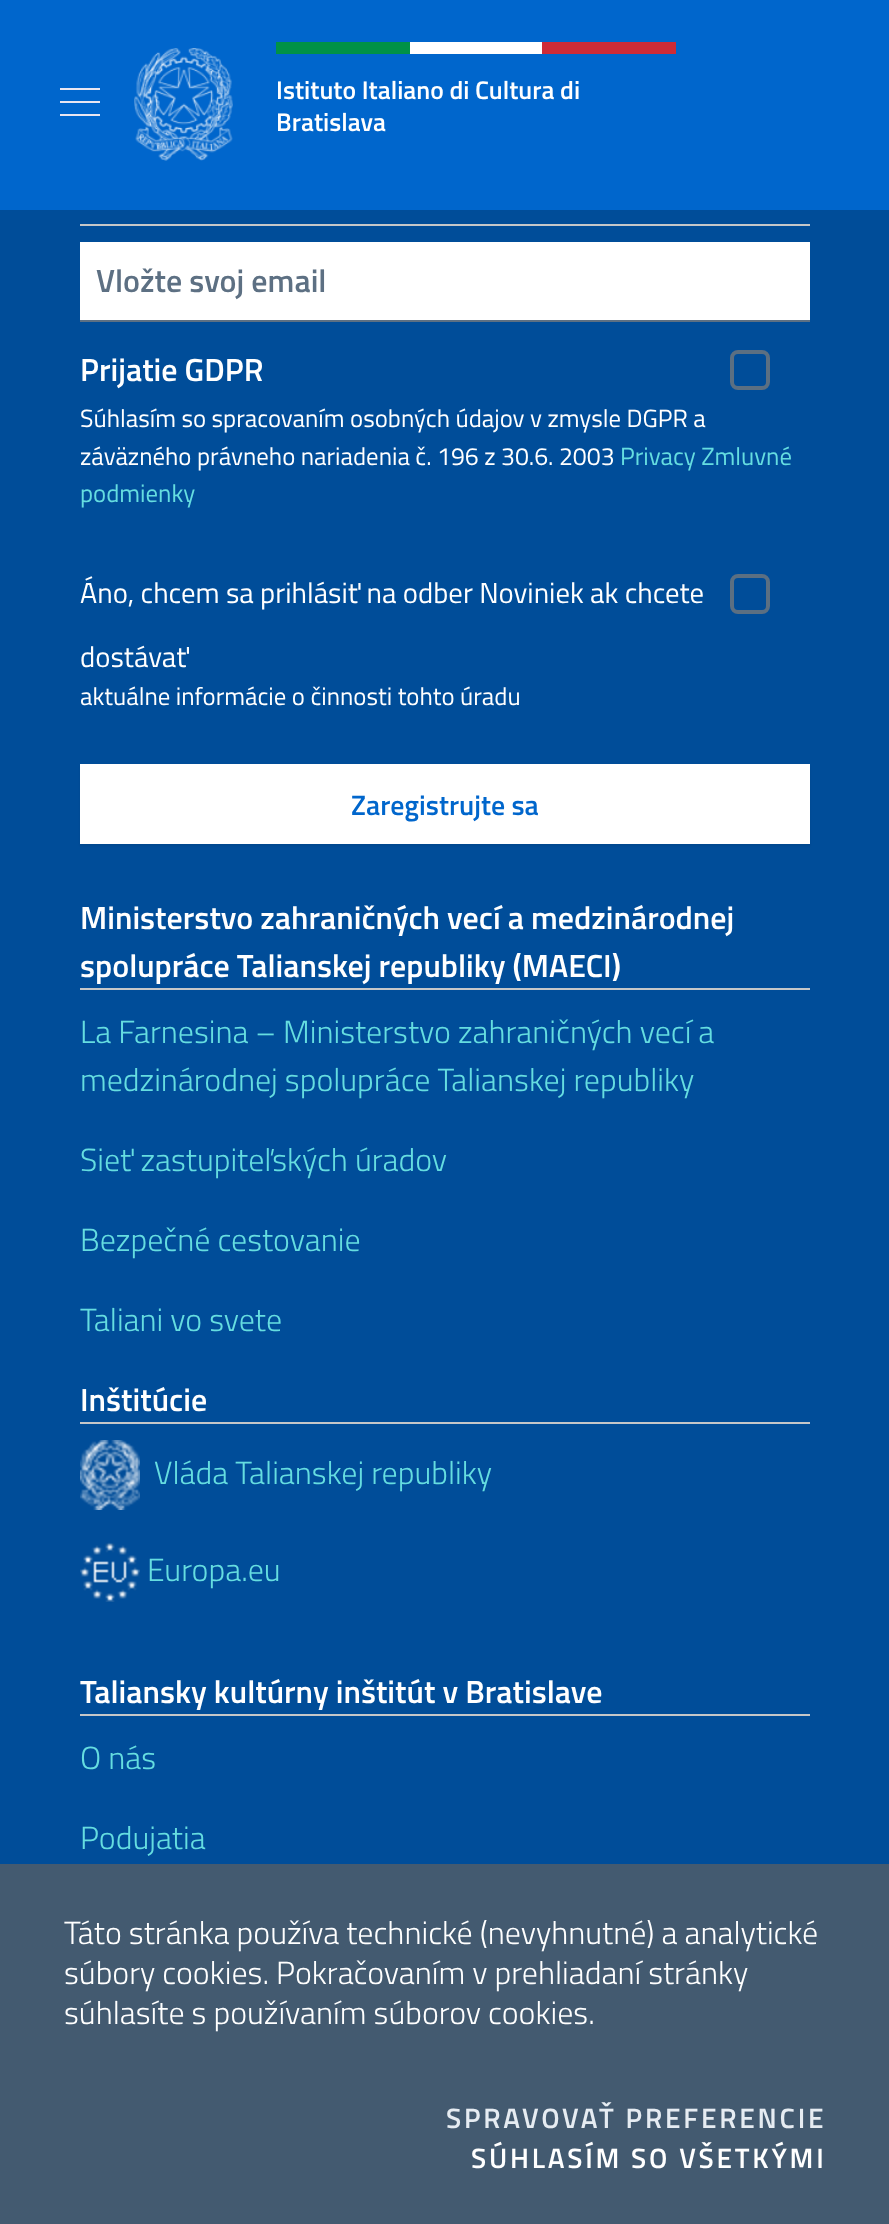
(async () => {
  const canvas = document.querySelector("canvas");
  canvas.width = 889;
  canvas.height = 2224;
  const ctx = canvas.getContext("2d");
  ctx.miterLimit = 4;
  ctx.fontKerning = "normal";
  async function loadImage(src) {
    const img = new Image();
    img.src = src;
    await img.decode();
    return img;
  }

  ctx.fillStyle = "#004d99";
  ctx.fillRect(0, 0, 889, 2224);
  ctx.fillStyle = "#0066cc";
  ctx.fillRect(0, 0, 889, 210);
  ctx.drawImage(await loadImage("img/1.png"), 60, 88, 40, 28);
  ctx.drawImage(await loadImage("img/2.png"), 134, 48, 99, 113);
  for (const [x, y, w, h, color] of [
    [276, 42, 134, 12, "#009246"],
    [410, 42, 132, 12, "#ffffff"],
    [542, 42, 134, 12, "#ce2b37"],
    [80, 224, 730, 2, "#c5c7c9"],
    [80, 242, 730, 78, "#ffffff"],
    [80, 320, 730, 2, "#5d7083"],
  ]) {
    ctx.fillStyle = color;
    ctx.fillRect(x, y, w, h);
  }
  ctx.beginPath();
  ctx.roundRect(732, 352, 36, 36, 6);
  ctx.strokeStyle = "#5b6f82";
  ctx.lineWidth = 4;
  ctx.stroke();
  ctx.beginPath();
  ctx.roundRect(732, 576, 36, 36, 6);
  ctx.stroke();
  ctx.fillStyle = "rgba(0, 0, 0, 0.07)";
  ctx.filter = "blur(1px)";
  ctx.beginPath();
  ctx.rect(80, 766, 730, 80);
  ctx.fill();
  ctx.filter = "none";
  for (const [x, y, w, h, color] of [
    [80, 764, 730, 80, "#ffffff"],
    [80, 988, 730, 2, "#c5c7c9"],
    [80, 1422, 730, 2, "#c5c7c9"],
  ]) {
    ctx.fillStyle = color;
    ctx.fillRect(x, y, w, h);
  }
  ctx.drawImage(await loadImage("img/3.png"), 80, 1440, 60, 70);
  ctx.drawImage(await loadImage("img/4.png"), 80, 1542, 60, 60);
  ctx.fillRect(80, 1714, 730, 2);
  ctx.fillStyle = "#435a70";
  ctx.fillRect(0, 1864, 889, 360);
  ctx.font = "600 25.6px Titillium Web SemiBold";
  ctx.fillStyle = "#ffffff";
  ctx.fillText("Istituto Italiano di Cultura di", 276, 99);
  ctx.fillText("Bratislava", 276, 131);
  ctx.font = "600 32px Titillium Web SemiBold";
  ctx.fillStyle = "#5d7083";
  ctx.fillText("Vložte svoj email", 96, 292);
  ctx.fillStyle = "#ffffff";
  ctx.fillText("Prijatie GDPR", 80, 381);
  ctx.font = "24.85px Titillium Web";
  ctx.fillText("Súhlasím so spracovaním osobných údajov v zmysle DGPR a", 80, 427);
  ctx.fillText("záväzného právneho nariadenia č. 196 z 30.6. 2003", 80, 465);
  ctx.fillStyle = "#65dde0";
  ctx.fillText("Privacy Zmluvné", 620, 465);
  ctx.fillText("podmienky", 80, 502);
  ctx.font = "28.8px Titillium Web";
  ctx.fillStyle = "#ffffff";
  ctx.fillText("Áno, chcem sa prihlásiť na odber Noviniek ak chcete", 80, 603);
  ctx.fillText("dostávať", 80, 667);
  ctx.font = "24.85px Titillium Web";
  ctx.fillText("aktuálne informácie o činnosti tohto úradu", 80, 705);
  ctx.font = "600 28px Titillium Web SemiBold";
  ctx.fillStyle = "#0066cc";
  ctx.fillText("Zaregistrujte sa", 351, 815);
  ctx.font = "600 32px Titillium Web SemiBold";
  ctx.fillStyle = "#ffffff";
  ctx.fillText("Ministerstvo zahraničných vecí a medzinárodnej", 80, 929);
  ctx.fillText("spolupráce Talianskej republiky (MAECI)", 80, 977);
  ctx.font = "300 32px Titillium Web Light";
  ctx.fillStyle = "#65dde0";
  for (const [text, x, y] of [
    ["La Farnesina – Ministerstvo zahraničných vecí a", 80, 1043],
    ["medzinárodnej spolupráce Talianskej republiky", 80, 1091],
    ["Sieť zastupiteľských úradov", 80, 1171],
    ["Bezpečné cestovanie", 80, 1251],
    ["Taliani vo svete", 80, 1331],
  ]) {
    ctx.fillText(text, x, y);
  }
  ctx.font = "600 32px Titillium Web SemiBold";
  ctx.fillStyle = "#ffffff";
  ctx.fillText("Inštitúcie", 80, 1411);
  ctx.font = "300 32px Titillium Web Light";
  ctx.fillStyle = "#65dde0";
  ctx.fillText("Vláda Talianskej republiky", 154, 1484);
  ctx.fillText("Europa.eu", 147, 1581);
  ctx.font = "600 32px Titillium Web SemiBold";
  ctx.fillStyle = "#ffffff";
  ctx.fillText("Taliansky kultúrny inštitút v Bratislave", 80, 1703);
  ctx.font = "300 32px Titillium Web Light";
  ctx.fillStyle = "#65dde0";
  ctx.fillText("O nás", 80, 1769);
  ctx.fillText("Podujatia", 80, 1849);
  ctx.fillStyle = "#ffffff";
  for (const [text, x, y] of [
    ["Táto stránka používa technické (nevyhnutné) a analytické", 64, 1944],
    ["súbory cookies. Pokračovaním v prehliadaní stránky", 64, 1984],
    ["súhlasíte s používaním súborov cookies.", 64, 2024],
  ]) {
    ctx.fillText(text, x, y);
  }
  ctx.letterSpacing = "2.8px";
  ctx.font = "600 28px Titillium Web SemiBold";
  ctx.fillStyle = "#e6ecf2";
  ctx.fillText("SPRAVOVAŤ PREFERENCIE", 446, 2128);
  ctx.fillStyle = "#ffffff";
  ctx.fillText("SÚHLASÍM SO VŠETKÝMI", 471, 2168);
})();
